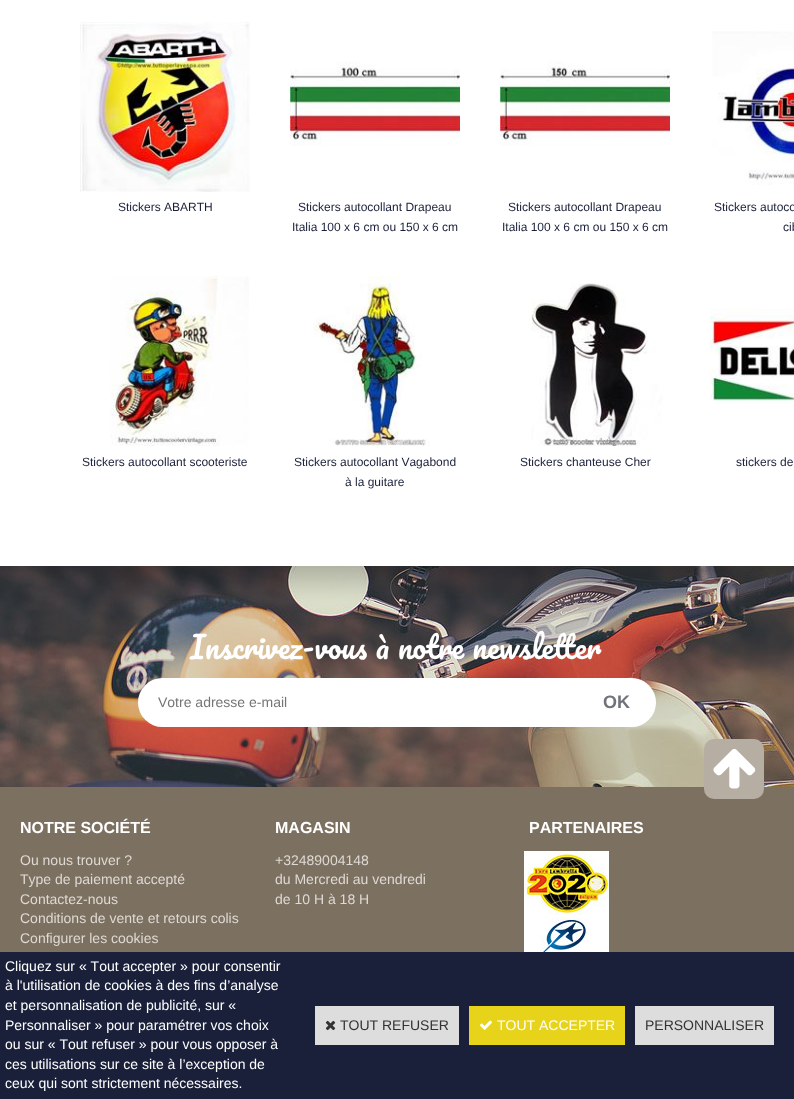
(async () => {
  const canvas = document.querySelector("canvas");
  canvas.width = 794;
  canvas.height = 1099;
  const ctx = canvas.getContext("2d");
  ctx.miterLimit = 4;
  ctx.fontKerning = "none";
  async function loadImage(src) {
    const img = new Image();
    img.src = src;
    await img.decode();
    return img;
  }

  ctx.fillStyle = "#ffffff";
  ctx.fillRect(0, 0, 794, 1099);
  ctx.drawImage(await loadImage("img/1.png"), 80, 22, 170, 170);
  ctx.drawImage(await loadImage("img/2.png"), 290, 61, 170, 85);
  ctx.drawImage(await loadImage("img/3.png"), 500, 61, 170, 85);
  ctx.drawImage(await loadImage("img/4.png"), 712, 31, 82, 154);
  ctx.drawImage(await loadImage("img/5.png"), 110, 276, 139, 170);
  ctx.drawImage(await loadImage("img/6.png"), 313, 276, 117, 170);
  ctx.drawImage(await loadImage("img/7.png"), 531, 283, 132, 163);
  ctx.drawImage(await loadImage("img/8.png"), 710, 308, 84, 93);
  ctx.fillStyle = "#7c7061";
  ctx.fillRect(0, 787, 794, 165);
  ctx.drawImage(await loadImage("img/9.png"), 0, 566, 794, 221);
  ctx.fillStyle = "#ffffff";
  ctx.beginPath();
  ctx.roundRect(138, 678, 440, 49, [24.5, 0, 0, 24.5]);
  ctx.fill();
  ctx.beginPath();
  ctx.roundRect(576, 678, 80, 49, [0, 24.5, 24.5, 0]);
  ctx.fill();
  ctx.drawImage(await loadImage("img/10.png"), 524, 851, 85, 67);
  ctx.drawImage(await loadImage("img/11.png"), 524, 918, 85, 34);
  ctx.fillStyle = "#b7aea3";
  ctx.beginPath();
  ctx.roundRect(704, 739, 60, 60, 10);
  ctx.fill();
  ctx.drawImage(await loadImage("img/12.png"), 713, 749, 43, 40);
  ctx.fillStyle = "#1a203a";
  ctx.fillRect(0, 952, 794, 147);
  ctx.fillStyle = "#dddddd";
  ctx.fillRect(315, 1006, 144, 39);
  ctx.drawImage(await loadImage("img/13.png"), 325, 1020, 11, 11);
  ctx.fillStyle = "#e7d31a";
  ctx.fillRect(469, 1006, 156, 39);
  ctx.drawImage(await loadImage("img/14.png"), 480, 1020, 12, 10);
  ctx.fillStyle = "#dddddd";
  ctx.fillRect(635, 1006, 139, 39);
  ctx.font = "12px Arimo";
  ctx.fillStyle = "#1a203a";
  for (const [text, x, y] of [
    ["Stickers ABARTH", 118, 211],
    ["Stickers autocollant Drapeau", 298, 211],
    ["Italia 100 x 6 cm ou 150 x 6 cm", 292, 231],
    ["Stickers autocollant Drapeau", 508, 211],
    ["Italia 100 x 6 cm ou 150 x 6 cm", 502, 231],
    ["Stickers autoco", 714, 211],
    ["cib", 783, 231],
    ["Stickers autocollant scooteriste", 82, 466],
    ["Stickers autocollant Vagabond", 294, 466],
    ["à la guitare", 345, 486],
    ["Stickers chanteuse Cher", 520, 466],
    ["stickers de", 736, 466],
  ]) {
    ctx.fillText(text, x, y);
  }
  ctx.wordSpacing = "0.5px";
  ctx.font = "30px Pacifico";
  ctx.fillStyle = "#ffffff";
  ctx.fillText("Inscrivez-vous à notre newsletter", 190, 659);
  ctx.wordSpacing = "0px";
  ctx.font = "14px Arimo";
  ctx.fillStyle = "#757575";
  ctx.fillText("Votre adresse e-mail", 158, 707);
  ctx.font = "bold 18px Arimo";
  ctx.fillStyle = "#71737b";
  ctx.fillText("OK", 603, 708);
  ctx.font = "bold 16px Arimo";
  ctx.fillStyle = "#ffffff";
  ctx.fillText("NOTRE SOCIÉTÉ", 20, 833);
  ctx.font = "14px Arimo";
  ctx.fillStyle = "#dfdad4";
  for (const [text, x, y] of [
    ["Ou nous trouver ?", 20, 865],
    ["Type de paiement accepté", 20, 884],
    ["Contactez-nous", 20, 904],
    ["Conditions de vente et retours colis", 20, 923],
    ["Configurer les cookies", 20, 943],
  ]) {
    ctx.fillText(text, x, y);
  }
  ctx.font = "bold 16px Arimo";
  ctx.fillStyle = "#ffffff";
  ctx.fillText("MAGASIN", 275, 833);
  ctx.font = "14px Arimo";
  ctx.fillStyle = "#dfdad4";
  for (const [text, x, y] of [
    ["+32489004148", 275, 865],
    ["du Mercredi au vendredi", 275, 884],
    ["de 10 H à 18 H", 275, 904],
  ]) {
    ctx.fillText(text, x, y);
  }
  ctx.font = "bold 16px Arimo";
  ctx.fillStyle = "#ffffff";
  ctx.fillText("PARTENAIRES", 529, 833);
  ctx.font = "14px Arimo";
  for (const [text, x, y] of [
    ["Cliquez sur « Tout accepter » pour consentir", 5, 971],
    ["à l'utilisation de cookies à des fins d’analyse", 5, 990],
    ["et personnalisation de publicité, sur «", 5, 1010],
    ["Personnaliser » pour paramétrer vos choix", 5, 1030],
    ["ou sur « Tout refuser » pour vous opposer à", 5, 1049],
    ["ces utilisations sur ce site à l’exception de", 5, 1069],
    ["ceux qui sont strictement nécessaires.", 5, 1088],
  ]) {
    ctx.fillText(text, x, y);
  }
  ctx.fillStyle = "#333333";
  ctx.fillText("TOUT REFUSER", 340, 1030);
  ctx.fillStyle = "#ffffff";
  ctx.fillText("TOUT ACCEPTER", 497, 1030);
  ctx.fillStyle = "#333333";
  ctx.fillText("PERSONNALISER", 645, 1030);
})();
